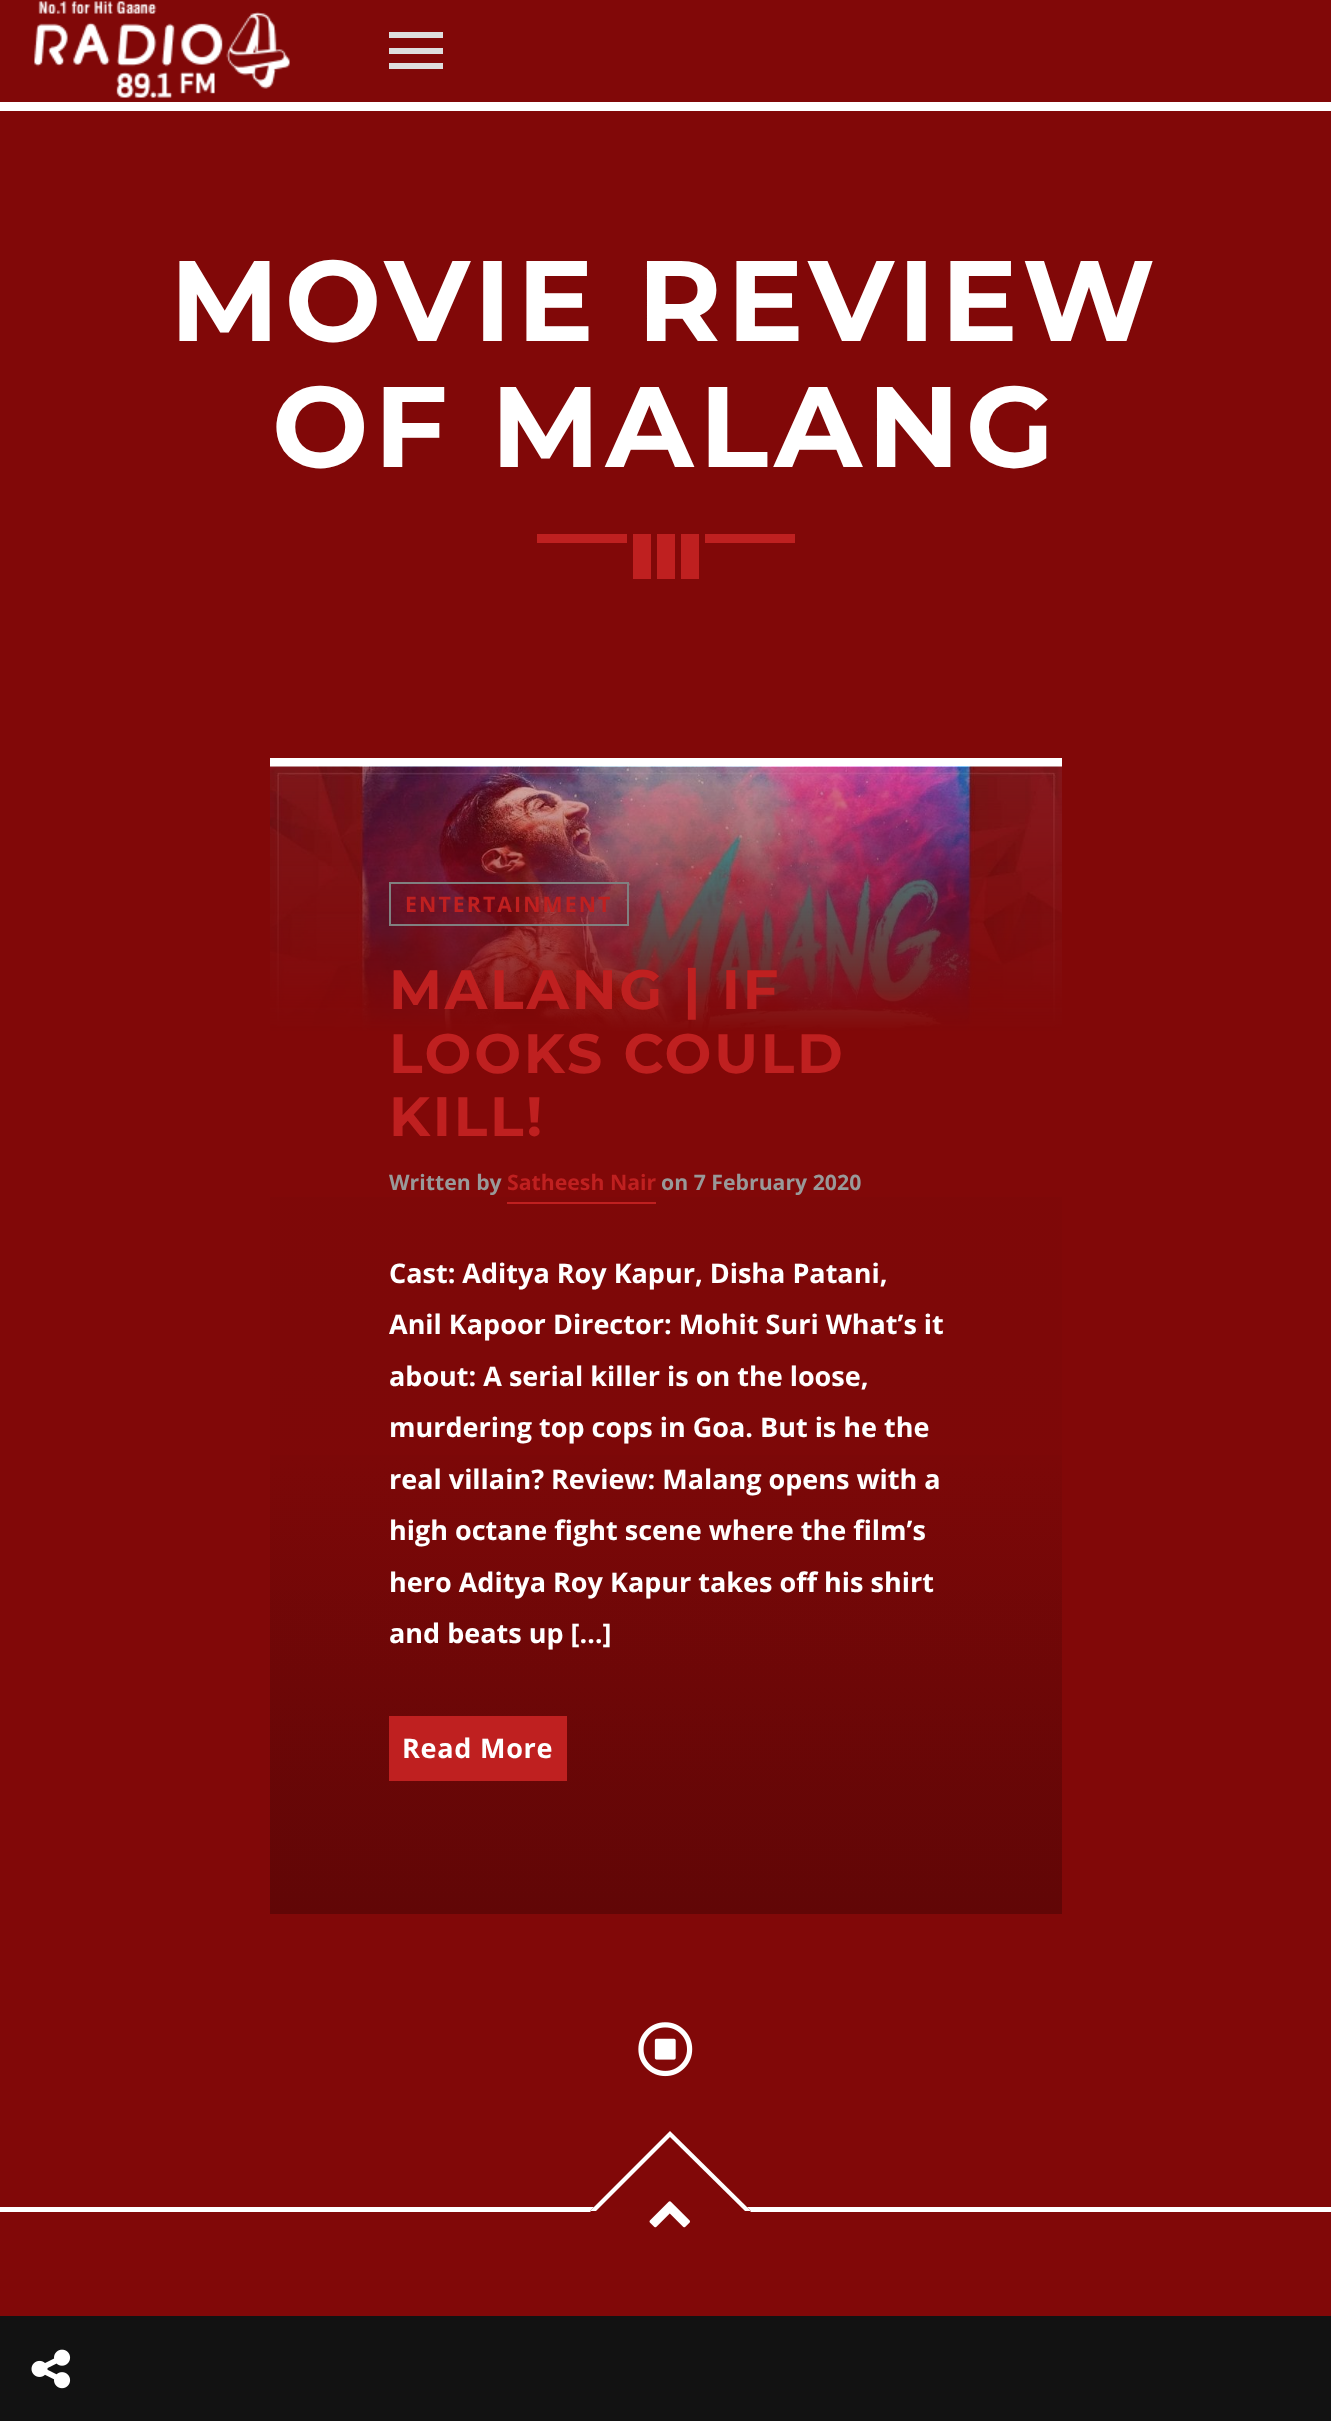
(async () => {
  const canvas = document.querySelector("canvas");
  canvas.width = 1331;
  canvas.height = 2421;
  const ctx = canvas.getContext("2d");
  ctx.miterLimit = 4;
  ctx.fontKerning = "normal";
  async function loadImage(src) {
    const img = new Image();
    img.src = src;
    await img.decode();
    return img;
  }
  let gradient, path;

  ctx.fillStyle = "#810808";
  ctx.fillRect(0, 0, 1331, 2421);
  ctx.drawImage(await loadImage("img/1.png"), 34, 1, 256, 97);
  ctx.fillStyle = "#dedede";
  path = new Path2D("M389 69H443V63H389ZM389 54H443V48H389ZM389 32V38H443V32Z");
  ctx.fill(path);
  ctx.fillStyle = "#121212";
  ctx.fillRect(0, 2316, 1331, 105);
  ctx.drawImage(await loadImage("img/2.png"), 31, 2349, 40, 40);
  for (const [x, y, w, h, color] of [
    [0, 102, 1331, 9, "#ffffff"],
    [537, 534, 90, 9, "#bf2020"],
    [657, 534, 18, 45, "#bf2020"],
    [633, 534, 18, 45, "#bf2020"],
    [681, 534, 18, 45, "#bf2020"],
    [705, 534, 90, 9, "#bf2020"],
  ]) {
    ctx.fillStyle = color;
    ctx.fillRect(x, y, w, h);
  }
  gradient = ctx.createLinearGradient(666, 766, 666, 1914);
  gradient.addColorStop(0, "#800808");
  gradient.addColorStop(1, "#7c0808");
  ctx.fillStyle = gradient;
  ctx.fillRect(270, 1197, 792, 258);
  ctx.fillStyle = "#ffffff";
  ctx.fillRect(270, 758, 792, 9);
  ctx.drawImage(await loadImage("img/3.png"), 270, 766, 792, 266);
  gradient = ctx.createLinearGradient(666, 1455, 666, 1914);
  gradient.addColorStop(0, "#7c0808");
  gradient.addColorStop(1, "#640606");
  ctx.fillStyle = gradient;
  ctx.fillRect(270, 1455, 792, 459);
  gradient = ctx.createLinearGradient(666, 762, 666, 1914);
  gradient.addColorStop(0, "rgba(0, 0, 0, 0)");
  gradient.addColorStop(1, "rgba(0, 0, 0, 0.03)");
  ctx.fillStyle = gradient;
  ctx.fillRect(270, 1590, 792, 324);
  ctx.strokeStyle = "#808080";
  ctx.lineWidth = 2;
  ctx.strokeRect(390, 883, 238, 42);
  ctx.fillStyle = "#bf2020";
  ctx.fillRect(507, 1202, 149, 2);
  ctx.fillRect(389, 1716, 178, 65);
  ctx.drawImage(await loadImage("img/4.png"), 638, 2022, 55, 55);
  ctx.fillStyle = "#ffffff";
  ctx.fillRect(0, 2207, 1331, 5);
  ctx.fillStyle = "#810808";
  path = new Path2D("M670 2131L751 2211L670 2292L590 2211Z");
  ctx.fill(path);
  ctx.fillStyle = "#ffffff";
  path = new Path2D("M670 2131L751 2211H745L670 2137Z");
  ctx.fill(path);
  path = new Path2D("M590 2211L670 2131V2137L596 2211Z");
  ctx.fill(path);
  ctx.drawImage(await loadImage("img/5.png"), 649, 2201, 41, 27);
  ctx.letterSpacing = "5.75px";
  ctx.font = "bold 114.25px Montserrat";
  ctx.fillText("MOVIE REVIEW", 170, 341);
  ctx.fillText("OF MALANG", 272, 467);
  ctx.letterSpacing = "2.1px";
  ctx.font = "bold 21.25px Open Sans";
  ctx.fillStyle = "#bf2020";
  ctx.fillText("ENTERTAINMENT", 405, 912);
  ctx.letterSpacing = "2.75px";
  ctx.font = "bold 55.5px Montserrat";
  for (const [text, x, y] of [
    ["MALANG | IF", 389, 1009],
    ["LOOKS COULD", 389, 1073],
    ["KILL!", 389, 1136],
  ]) {
    ctx.fillText(text, x, y);
  }
  ctx.letterSpacing = "0px";
  ctx.font = "bold 21.25px Open Sans";
  ctx.fillStyle = "#999999";
  ctx.fillText("Written by", 389, 1190);
  ctx.fillStyle = "#bf2020";
  ctx.fillText("Satheesh Nair", 507, 1190);
  ctx.fillStyle = "#999999";
  ctx.fillText("on 7 February 2020", 661, 1190);
  ctx.font = "bold 27px Open Sans";
  ctx.fillStyle = "#ffffff";
  for (const [text, x, y] of [
    ["Cast: Aditya Roy Kapur, Disha Patani,", 389, 1283],
    ["Anil Kapoor Director: Mohit Suri What’s it", 389, 1334],
    ["about: A serial killer is on the loose,", 389, 1386],
    ["murdering top cops in Goa. But is he the", 389, 1437],
    ["real villain? Review: Malang opens with a", 389, 1489],
    ["high octane fight scene where the film’s", 389, 1540],
    ["hero Aditya Roy Kapur takes off his shirt", 389, 1592],
    ["and beats up […]", 389, 1643],
  ]) {
    ctx.fillText(text, x, y);
  }
  ctx.letterSpacing = "0.75px";
  ctx.fillText("Read More", 402, 1758);
})();
